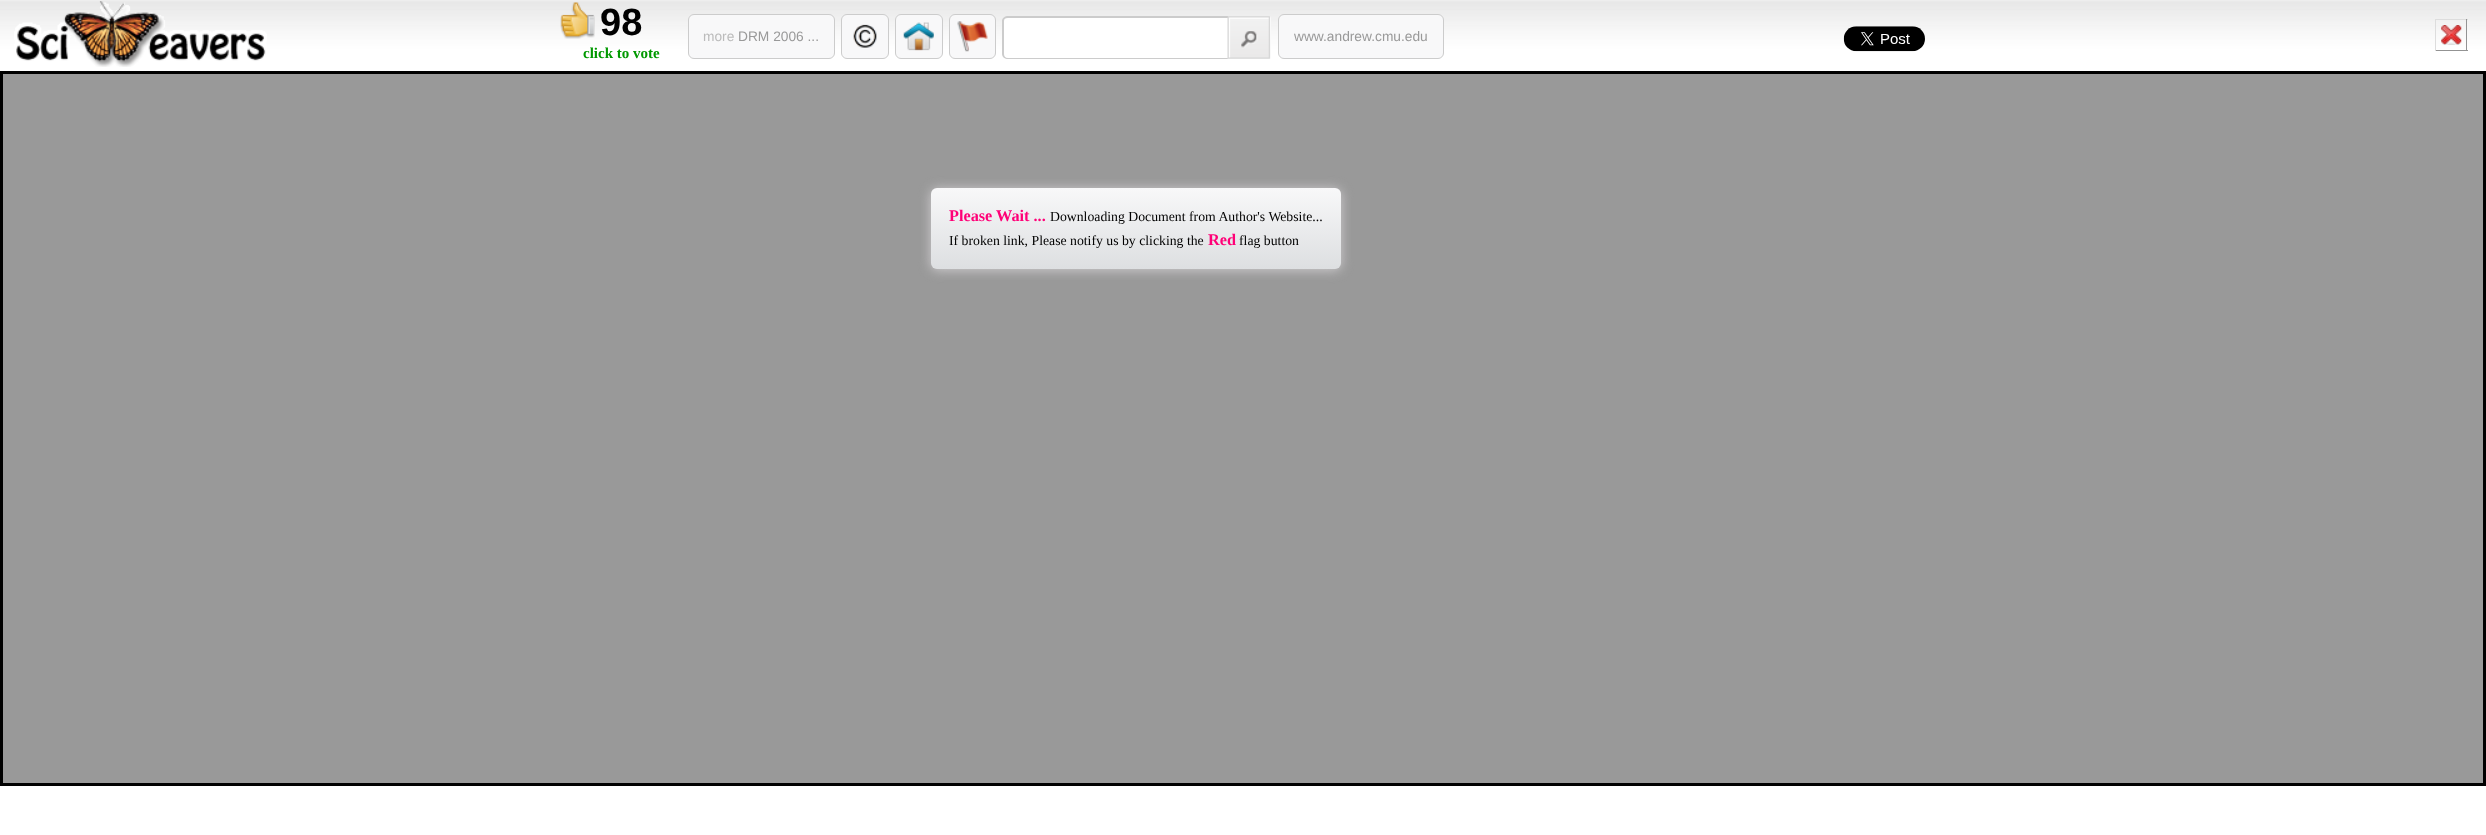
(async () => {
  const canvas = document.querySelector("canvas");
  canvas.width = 2486;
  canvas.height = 835;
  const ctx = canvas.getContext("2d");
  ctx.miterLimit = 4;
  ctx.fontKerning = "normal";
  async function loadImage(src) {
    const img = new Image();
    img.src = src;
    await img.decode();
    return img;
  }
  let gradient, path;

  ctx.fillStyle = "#ffffff";
  ctx.fillRect(0, 0, 2486, 835);
  ctx.fillStyle = "#eeeeee";
  ctx.fillRect(0, 0, 2486, 2);
  ctx.drawImage(await loadImage("img/1.png"), 0, 1, 2486, 70);
  ctx.drawImage(await loadImage("img/2.png"), 14, 1, 253, 66);
  ctx.drawImage(await loadImage("img/3.png"), 560, 2, 35, 37);
  ctx.fillStyle = "#f8f8f9";
  ctx.beginPath();
  ctx.roundRect(688.5, 14.5, 146, 44, 5.5);
  ctx.fill();
  ctx.strokeStyle = "#cccccc";
  ctx.stroke();
  ctx.beginPath();
  ctx.roundRect(841.5, 14.5, 47, 44, 5.5);
  ctx.fill();
  ctx.stroke();
  ctx.drawImage(await loadImage("img/4.png"), 853, 24, 24, 24);
  ctx.beginPath();
  ctx.roundRect(895.5, 14.5, 47, 44, 5.5);
  ctx.fill();
  ctx.stroke();
  ctx.drawImage(await loadImage("img/5.png"), 903, 22, 31, 29);
  ctx.beginPath();
  ctx.roundRect(949.5, 14.5, 46, 44, 5.5);
  ctx.fill();
  ctx.stroke();
  ctx.drawImage(await loadImage("img/6.png"), 957, 21, 31, 31);
  ctx.fillStyle = "#ffffff";
  ctx.beginPath();
  ctx.roundRect(1003, 16, 225, 43, [5, 0, 0, 5]);
  ctx.fill();
  ctx.fillStyle = "#cccccc";
  path = new Path2D("M1008 16H1228V59H1008C1005 59 1002 57 1002 54V21C1002 18 1005 16 1008 16ZM1008 18H1228V58H1008C1005 58 1004 56 1004 54V21C1004 19 1005 18 1008 18Z");
  ctx.fill(path, "evenodd");
  ctx.drawImage(await loadImage("img/7.png"), 1227, 16, 44, 43);
  ctx.fillStyle = "#f8f8f9";
  ctx.beginPath();
  ctx.roundRect(1278.5, 14.5, 165, 44, 5.5);
  ctx.fill();
  ctx.stroke();
  ctx.drawImage(await loadImage("img/8.png"), 1843, 26, 82, 26);
  for (const [x, y, w, h, color] of [
    [2435, 19, 33, 1, "#dddddd"],
    [2466, 19, 1, 32, "#939393"],
    [2435, 50, 33, 1, "#939393"],
    [2435, 19, 1, 32, "#dddddd"],
  ]) {
    ctx.fillStyle = color;
    ctx.fillRect(x, y, w, h);
  }
  ctx.drawImage(await loadImage("img/9.png"), 2441, 25, 21, 20);
  ctx.fillStyle = "#999999";
  ctx.beginPath();
  ctx.rect(1.5, 72.5, 2483, 712);
  ctx.fill();
  ctx.strokeStyle = "#000000";
  ctx.lineWidth = 3;
  ctx.stroke();
  ctx.fillStyle = "#d1cfd1";
  ctx.filter = "blur(6px)";
  ctx.beginPath();
  ctx.roundRect(931, 189, 410, 81, 6);
  ctx.fill();
  ctx.filter = "none";
  gradient = ctx.createLinearGradient(931, 188, 931, 269);
  gradient.addColorStop(0, "#f8f8f9");
  gradient.addColorStop(1, "#dddfe1");
  ctx.fillStyle = gradient;
  ctx.beginPath();
  ctx.roundRect(931, 188, 410, 81, 6);
  ctx.fill();
  ctx.font = "bold 38px Liberation Sans";
  ctx.fillStyle = "#000000";
  ctx.fillText("98", 600, 35);
  ctx.font = "bold 15px Liberation Serif";
  ctx.fillStyle = "#009900";
  ctx.fillText("click to vote", 583, 58);
  ctx.font = "13.75px Liberation Sans";
  ctx.fillStyle = "#bbbbbb";
  ctx.fillText("more", 703, 41);
  ctx.fillStyle = "#999999";
  ctx.fillText("DRM 2006 ...", 738, 41);
  ctx.fillText("www.andrew.cmu.edu", 1294, 41);
  ctx.font = "bold 16.25px Liberation Serif";
  ctx.fillStyle = "#ff0077";
  ctx.fillText("Please Wait ...", 949, 221);
  ctx.font = "13.75px Liberation Serif";
  ctx.fillStyle = "#000000";
  ctx.fillText("Downloading Document from Author's Website...", 1050, 221);
  ctx.fillText("If broken link, Please notify us by clicking the", 949, 245);
  ctx.font = "bold 16.25px Liberation Serif";
  ctx.fillStyle = "#ff0077";
  ctx.fillText("Red", 1208, 245);
  ctx.font = "13.75px Liberation Serif";
  ctx.fillStyle = "#000000";
  ctx.fillText("flag button", 1239, 245);
})();
